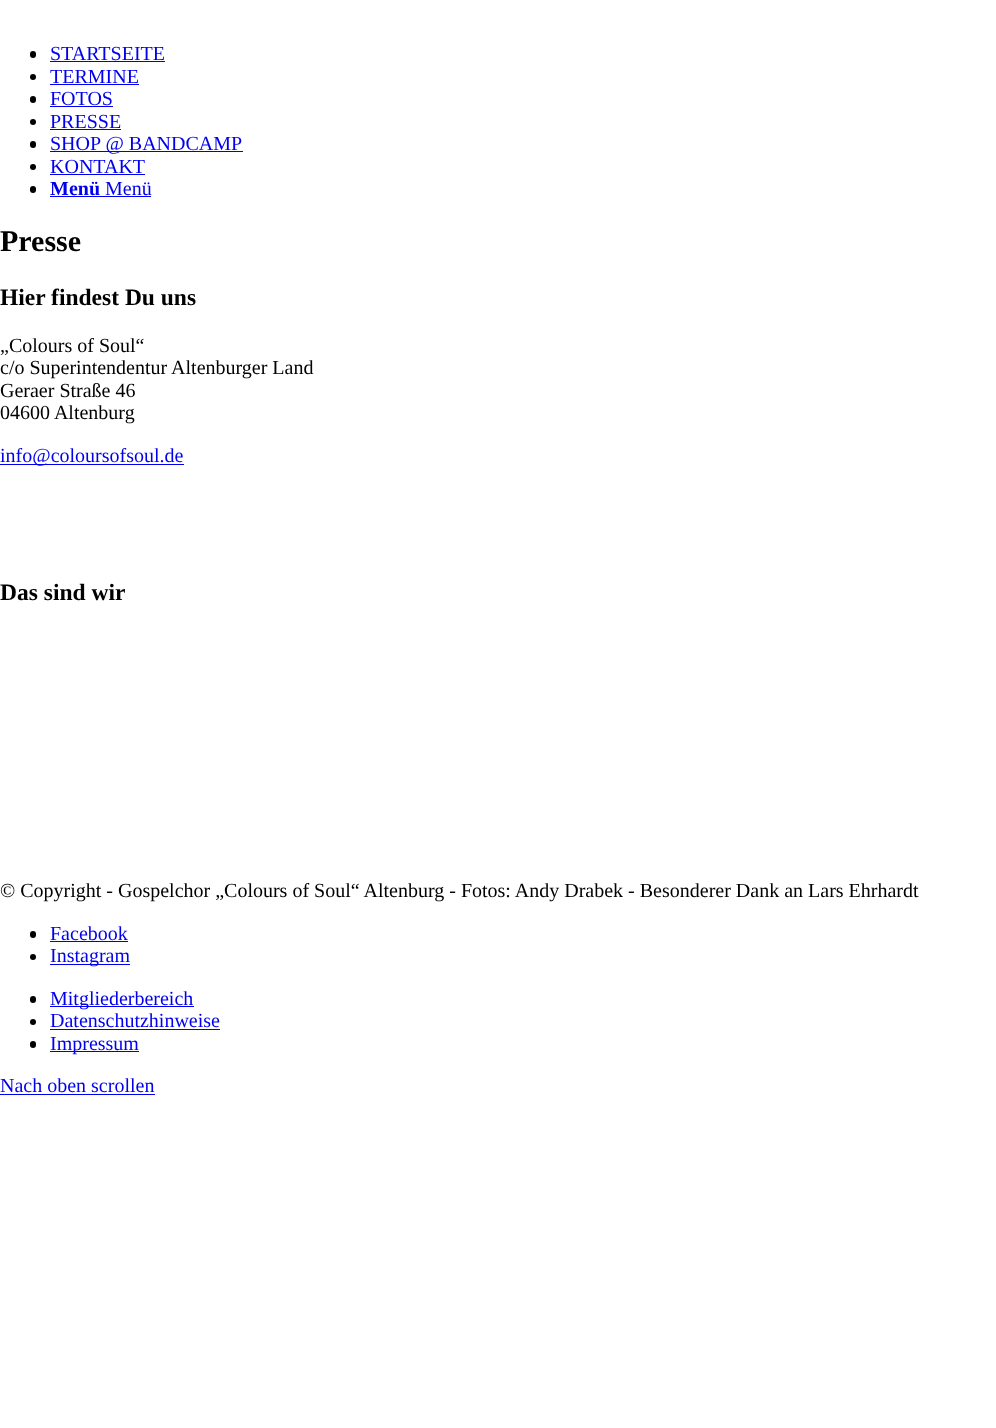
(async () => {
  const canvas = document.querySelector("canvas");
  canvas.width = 996;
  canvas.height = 1428;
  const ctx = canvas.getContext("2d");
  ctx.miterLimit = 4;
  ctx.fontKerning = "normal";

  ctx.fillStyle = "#ffffff";
  ctx.fillRect(0, 0, 996, 1428);
  ctx.fillStyle = "#000000";
  ctx.beginPath();
  ctx.roundRect(30, 51, 6, 7, 3);
  ctx.fill();
  ctx.fillStyle = "#0000ee";
  ctx.fillRect(50, 61, 115, 1);
  ctx.fillStyle = "#000000";
  ctx.beginPath();
  ctx.arc(33, 77, 3, 0, Math.PI * 2);
  ctx.fill();
  ctx.fillStyle = "#0000ee";
  ctx.fillRect(50, 84, 89, 1);
  ctx.fillStyle = "#000000";
  ctx.beginPath();
  ctx.roundRect(30, 96, 6, 7, 3);
  ctx.fill();
  ctx.fillStyle = "#0000ee";
  ctx.fillRect(50, 106, 63, 1);
  ctx.fillStyle = "#000000";
  ctx.beginPath();
  ctx.arc(33, 122, 3, 0, Math.PI * 2);
  ctx.fill();
  ctx.fillStyle = "#0000ee";
  ctx.fillRect(50, 129, 71, 1);
  ctx.fillStyle = "#000000";
  ctx.beginPath();
  ctx.roundRect(30, 141, 6, 7, 3);
  ctx.fill();
  ctx.fillStyle = "#0000ee";
  ctx.fillRect(50, 151, 193, 1);
  ctx.fillStyle = "#000000";
  ctx.beginPath();
  ctx.arc(33, 167, 3, 0, Math.PI * 2);
  ctx.fill();
  ctx.fillStyle = "#0000ee";
  ctx.fillRect(50, 174, 95, 1);
  ctx.fillStyle = "#000000";
  ctx.beginPath();
  ctx.roundRect(30, 186, 6, 7, 3);
  ctx.fill();
  ctx.fillStyle = "#0000ee";
  ctx.fillRect(50, 196, 101, 1);
  ctx.fillRect(0, 464, 184, 1);
  ctx.fillStyle = "#000000";
  ctx.beginPath();
  ctx.roundRect(30, 931, 6, 7, 3);
  ctx.fill();
  ctx.fillStyle = "#0000ee";
  ctx.fillRect(50, 941, 78, 1);
  ctx.fillStyle = "#000000";
  ctx.beginPath();
  ctx.arc(33, 957, 3, 0, Math.PI * 2);
  ctx.fill();
  ctx.fillStyle = "#0000ee";
  ctx.fillRect(50, 964, 80, 1);
  ctx.fillStyle = "#000000";
  ctx.beginPath();
  ctx.roundRect(30, 996, 6, 7, 3);
  ctx.fill();
  ctx.fillStyle = "#0000ee";
  ctx.fillRect(50, 1006, 144, 1);
  ctx.fillStyle = "#000000";
  ctx.beginPath();
  ctx.arc(33, 1022, 3, 0, Math.PI * 2);
  ctx.fill();
  ctx.fillStyle = "#0000ee";
  ctx.fillRect(50, 1029, 170, 1);
  ctx.fillStyle = "#000000";
  ctx.beginPath();
  ctx.roundRect(30, 1041, 6, 7, 3);
  ctx.fill();
  ctx.fillStyle = "#0000ee";
  ctx.fillRect(50, 1051, 89, 1);
  ctx.fillRect(0, 1094, 155, 1);
  ctx.font = "20px Liberation Serif";
  for (const [text, x, y] of [
    ["STARTSEITE", 50, 60],
    ["TERMINE", 50, 83],
    ["FOTOS", 50, 105],
    ["PRESSE", 50, 128],
    ["SHOP @ BANDCAMP", 50, 150],
    ["KONTAKT", 50, 173],
  ]) {
    ctx.fillText(text, x, y);
  }
  ctx.font = "bold 20px Liberation Serif";
  ctx.fillText("Menü", 50, 195);
  ctx.font = "20px Liberation Serif";
  ctx.fillText("Menü", 105, 195);
  ctx.font = "bold 30px Liberation Serif";
  ctx.fillStyle = "#000000";
  ctx.fillText("Presse", 0, 251);
  ctx.font = "bold 23.5px Liberation Serif";
  ctx.fillText("Hier findest Du uns", 0, 305);
  ctx.font = "20px Liberation Serif";
  for (const [text, x, y] of [
    ["„Colours of Soul“", 0, 352],
    ["c/o Superintendentur Altenburger Land", 0, 374],
    ["Geraer Straße 46", 0, 397],
    ["04600 Altenburg", 0, 419],
  ]) {
    ctx.fillText(text, x, y);
  }
  ctx.fillStyle = "#0000ee";
  ctx.fillText("info@coloursofsoul.de", 0, 462);
  ctx.font = "bold 23.5px Liberation Serif";
  ctx.fillStyle = "#000000";
  ctx.fillText("Das sind wir", 0, 600);
  ctx.font = "20px Liberation Serif";
  ctx.fillText("© Copyright - Gospelchor „Colours of Soul“ Altenburg - Fotos: Andy Drabek - Besonderer Dank an Lars Ehrhardt", 0, 897);
  ctx.fillStyle = "#0000ee";
  for (const [text, x, y] of [
    ["Facebook", 50, 940],
    ["Instagram", 50, 962],
    ["Mitgliederbereich", 50, 1005],
    ["Datenschutzhinweise", 50, 1027],
    ["Impressum", 50, 1050],
    ["Nach oben scrollen", 0, 1092],
  ]) {
    ctx.fillText(text, x, y);
  }
})();
